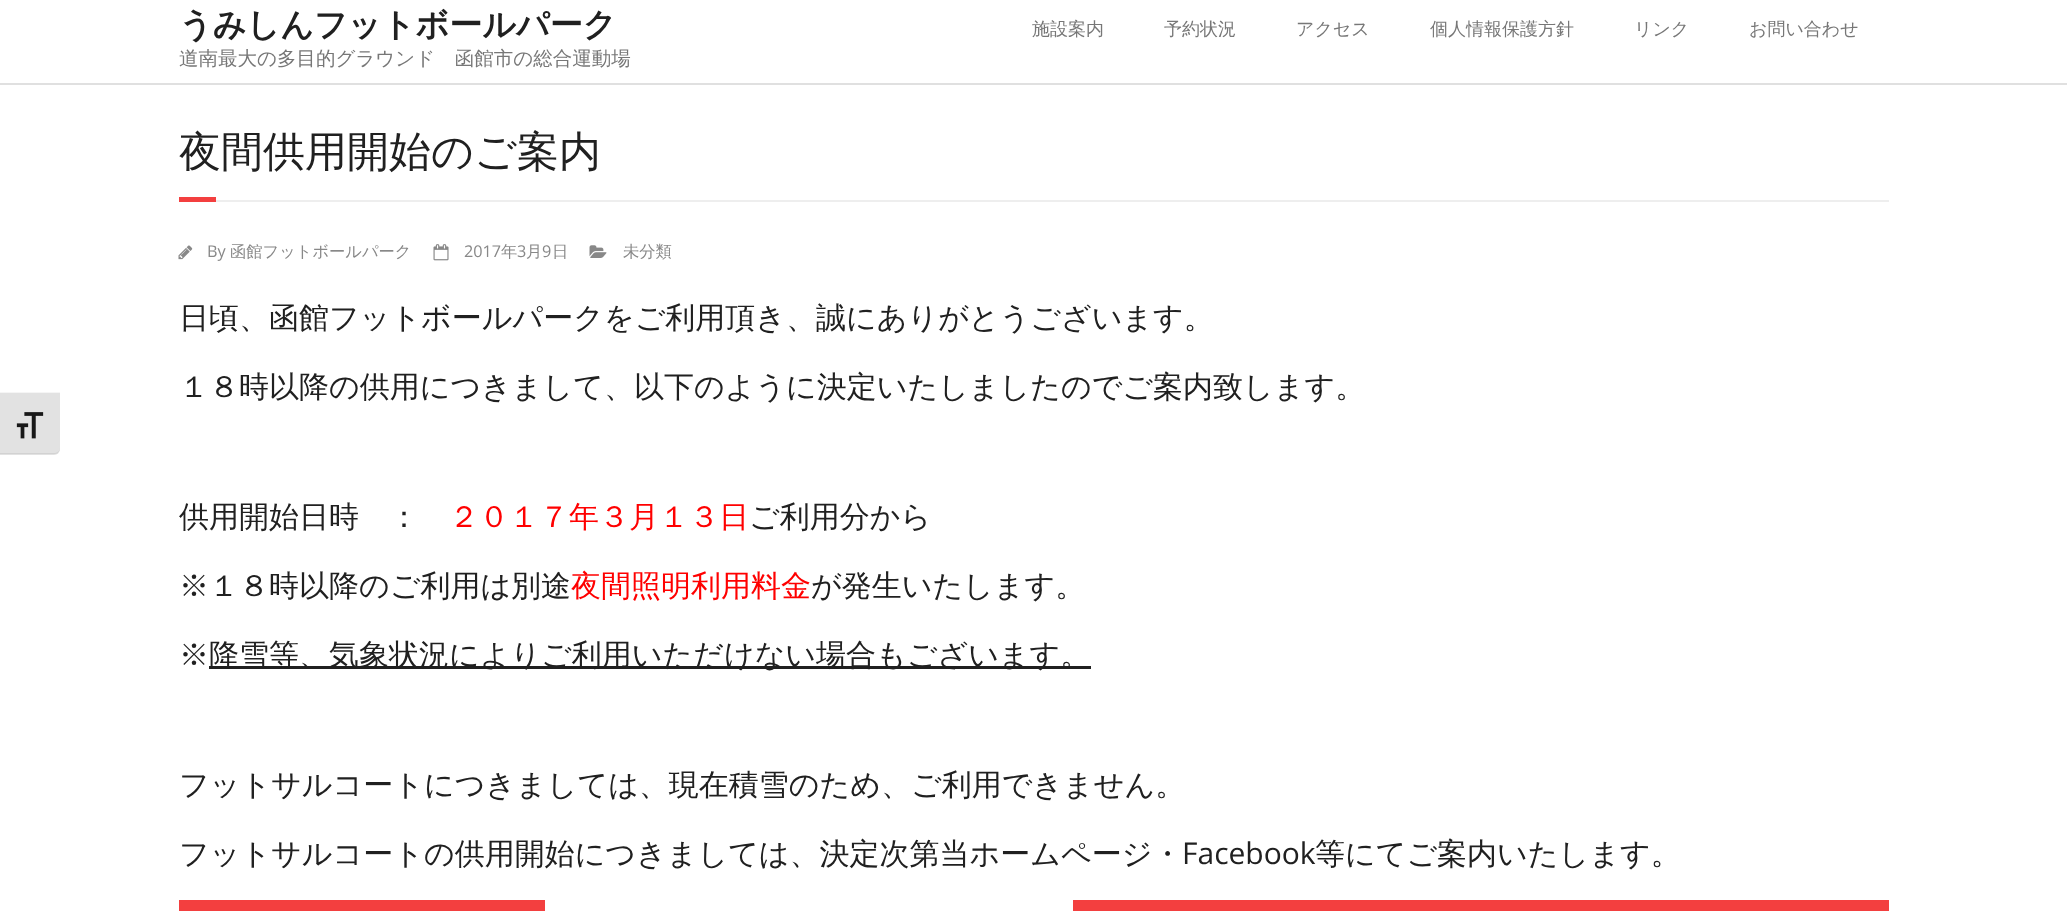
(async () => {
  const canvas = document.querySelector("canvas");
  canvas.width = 2067;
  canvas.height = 911;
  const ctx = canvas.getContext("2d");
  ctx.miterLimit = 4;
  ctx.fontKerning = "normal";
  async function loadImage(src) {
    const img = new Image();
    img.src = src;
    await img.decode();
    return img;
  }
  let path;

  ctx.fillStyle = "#ffffff";
  ctx.fillRect(0, 0, 2067, 911);
  ctx.fillStyle = "#e2e2e2";
  ctx.beginPath();
  ctx.roundRect(0, 392, 60, 63, [0, 0, 6, 0]);
  ctx.fill();
  ctx.fillStyle = "#f5f5f5";
  ctx.fillRect(0, 392, 60, 1);
  ctx.fillStyle = "#d2d2d2";
  path = new Path2D("M0 453V454H54C57 454 60 452 60 448C60 451 57 453 54 453Z");
  ctx.fill(path);
  ctx.drawImage(await loadImage("img/1.png"), 16, 412, 28, 27);
  for (const [x, y, w, h, color] of [
    [0, 83, 2067, 2, "#e0e0e0"],
    [179, 197, 37, 5, "#f33f3f"],
    [216, 200, 1673, 2, "#eeeeee"],
  ]) {
    ctx.fillStyle = color;
    ctx.fillRect(x, y, w, h);
  }
  ctx.drawImage(await loadImage("img/2.png"), 178, 245, 15, 15);
  ctx.drawImage(await loadImage("img/3.png"), 433, 244, 16, 17);
  ctx.drawImage(await loadImage("img/4.png"), 589, 245, 18, 13);
  for (const [x, y, w, h, color] of [
    [209, 666, 882, 3, "#202020"],
    [179, 900, 366, 11, "#f33f3f"],
    [1073, 900, 816, 11, "#f33f3f"],
  ]) {
    ctx.fillStyle = color;
    ctx.fillRect(x, y, w, h);
  }
  ctx.font = "bold 33px WenQuanYi Zen Hei";
  ctx.fillStyle = "#202020";
  ctx.fillText("うみしんフットボールパーク", 179, 36);
  ctx.font = "500 19.5px WenQuanYi Zen Hei";
  ctx.fillStyle = "#777777";
  ctx.fillText("道南最大の多目的グラウンド　函館市の総合運動場", 179, 65);
  ctx.font = "500 18px WenQuanYi Zen Hei";
  for (const [text, x, y] of [
    ["施設案内", 1032, 35],
    ["予約状況", 1164, 35],
    ["アクセス", 1296, 35],
    ["個人情報保護方針", 1430, 35],
    ["リンク", 1634, 35],
    ["お問い合わせ", 1749, 35],
  ]) {
    ctx.fillText(text, x, y);
  }
  ctx.font = "500 42px WenQuanYi Zen Hei";
  ctx.fillStyle = "#202020";
  ctx.fillText("夜間供用開始のご案内", 179, 166);
  ctx.font = "16.25px Open Sans";
  ctx.fillStyle = "#888888";
  ctx.fillText("By", 207, 257);
  ctx.font = "500 16.25px WenQuanYi Zen Hei";
  ctx.fillText("函館フットボールパーク", 230, 257);
  ctx.font = "16.25px Open Sans";
  ctx.fillText("2017", 464, 257);
  ctx.font = "500 16.25px WenQuanYi Zen Hei";
  ctx.fillText("年", 501, 257);
  ctx.font = "16.25px Open Sans";
  ctx.fillText("3", 517, 257);
  ctx.font = "500 16.25px WenQuanYi Zen Hei";
  ctx.fillText("月", 526, 257);
  ctx.font = "16.25px Open Sans";
  ctx.fillText("9", 542, 257);
  ctx.font = "500 16.25px WenQuanYi Zen Hei";
  ctx.fillText("日", 552, 257);
  ctx.fillText("未分類", 623, 257);
  ctx.font = "500 30px WenQuanYi Zen Hei";
  ctx.fillStyle = "#202020";
  for (const [text, x, y] of [
    ["日頃、函館フットボールパークをご利用頂き、誠にありがとうございます。", 179, 328],
    ["１８時以降の供用につきまして、以下のように決定いたしましたのでご案内致します。", 179, 397],
    ["供用開始日時　：", 179, 527],
  ]) {
    ctx.fillText(text, x, y);
  }
  ctx.fillStyle = "#ff0000";
  ctx.fillText("２０１７年３月１３日", 449, 527);
  ctx.fillStyle = "#202020";
  ctx.fillText("ご利用分から", 749, 527);
  ctx.fillText("※１８時以降のご利用は別途", 179, 596);
  ctx.fillStyle = "#ff0000";
  ctx.fillText("夜間照明利用料金", 571, 596);
  ctx.fillStyle = "#202020";
  for (const [text, x, y] of [
    ["が発生いたします。", 811, 596],
    ["※", 179, 665],
    ["降雪等、気象状況によりご利用いただけない場合もございます。", 209, 665],
    ["フットサルコートにつきましては、現在積雪のため、ご利用できません。", 179, 795],
    ["フットサルコートの供用開始につきましては、決定次第当ホームページ・", 179, 864],
  ]) {
    ctx.fillText(text, x, y);
  }
  ctx.font = "30px Open Sans";
  ctx.fillText("Facebook", 1182, 864);
  ctx.font = "500 30px WenQuanYi Zen Hei";
  ctx.fillText("等にてご案内いたします。", 1315, 864);
})();
